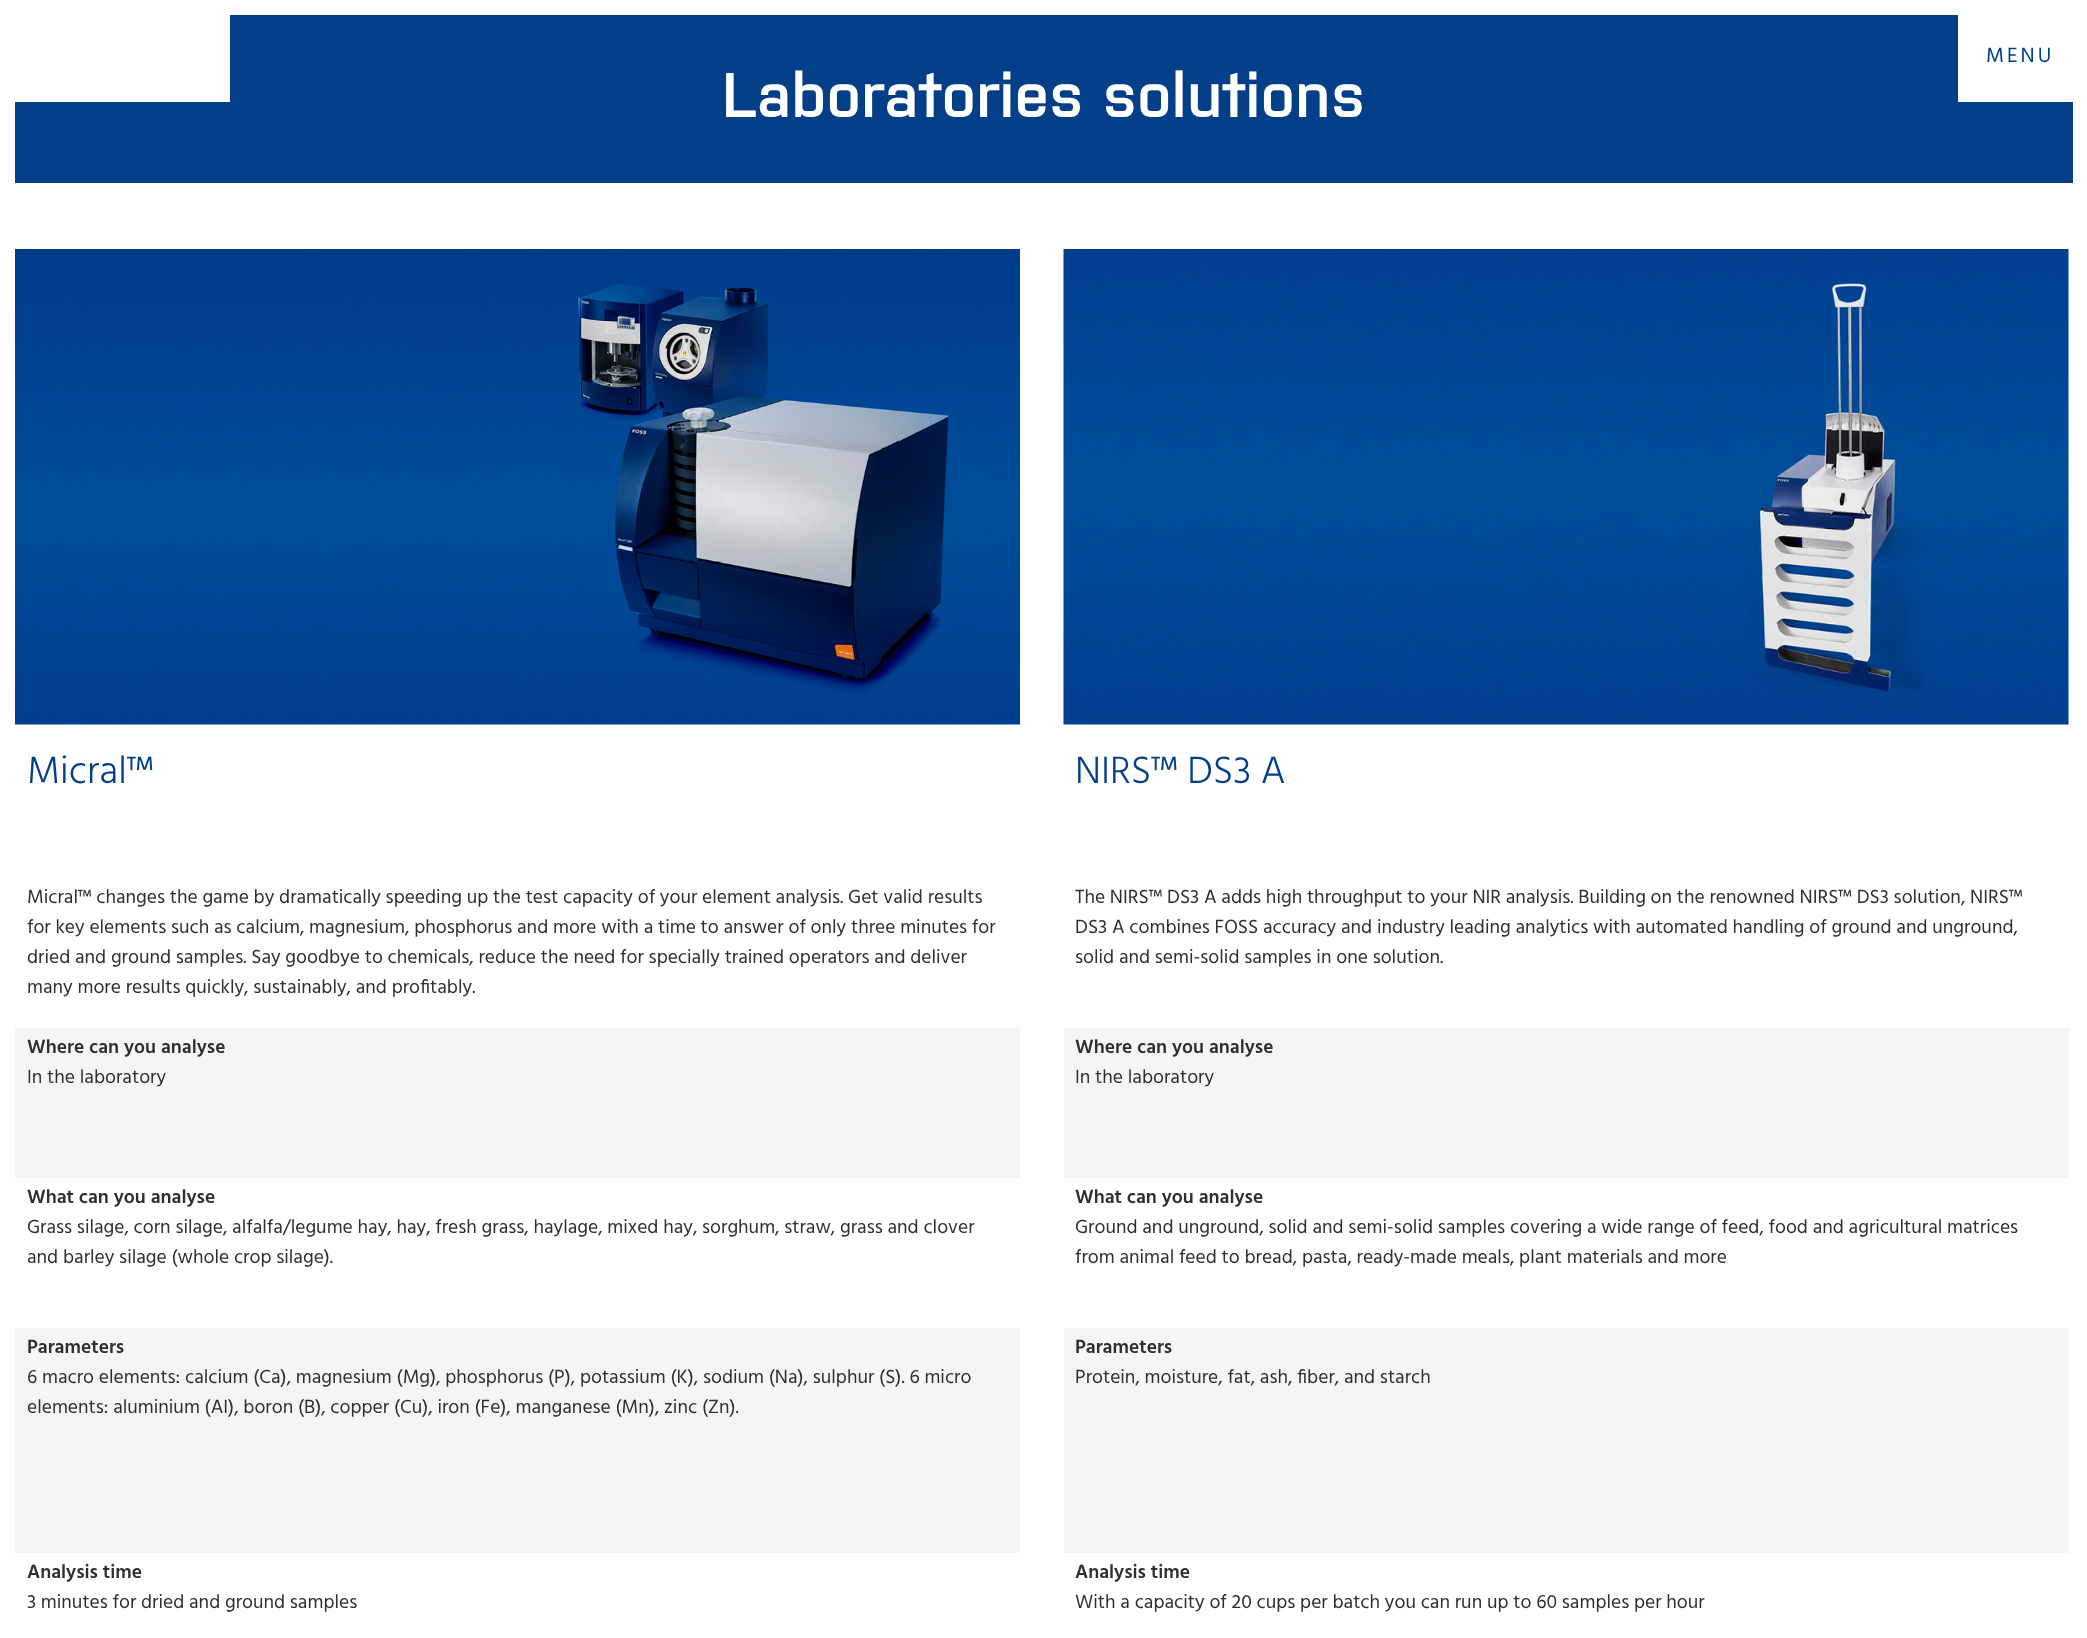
(async () => {
  const canvas = document.querySelector("canvas");
  canvas.width = 2087;
  canvas.height = 1638;
  const ctx = canvas.getContext("2d");
  ctx.miterLimit = 4;
  ctx.fontKerning = "normal";
  async function loadImage(src) {
    const img = new Image();
    img.src = src;
    await img.decode();
    return img;
  }

  ctx.fillStyle = "#ffffff";
  ctx.fillRect(0, 0, 2087, 1638);
  for (const [x, y, w, h, color] of [
    [15, 15, 2058, 168, "#023f88"],
    [15, 15, 215, 87, "#ffffff"],
    [1958, 15, 115, 87, "#ffffff"],
  ]) {
    ctx.fillStyle = color;
    ctx.fillRect(x, y, w, h);
  }
  ctx.drawImage(await loadImage("img/1.png"), 15, 249, 1005, 476);
  ctx.fillStyle = "#f5f5f5";
  ctx.fillRect(15, 1028, 1005, 150);
  ctx.fillRect(15, 1328, 1005, 225);
  ctx.drawImage(await loadImage("img/2.png"), 1063, 249, 1006, 476);
  ctx.fillRect(1064, 1028, 1005, 150);
  ctx.fillRect(1064, 1328, 1005, 225);
  ctx.letterSpacing = "3px";
  ctx.font = "21px Hind";
  ctx.fillStyle = "#023f88";
  ctx.fillText("MENU", 1986, 62);
  ctx.letterSpacing = "0px";
  ctx.font = "600 63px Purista";
  ctx.fillStyle = "#ffffff";
  ctx.fillText("Laboratories solutions", 722, 117);
  ctx.font = "300 39px Hind";
  ctx.fillStyle = "#023f88";
  ctx.fillText("Micral™", 27, 783);
  ctx.font = "19.5px Hind";
  ctx.fillStyle = "#2e2e2e";
  for (const [text, x, y] of [
    ["Micral™ changes the game by dramatically speeding up the test capacity of your element analysis. Get valid results", 27, 903],
    ["for key elements such as calcium, magnesium, phosphorus and more with a time to answer of only three minutes for", 27, 933],
    ["dried and ground samples. Say goodbye to chemicals, reduce the need for specially trained operators and deliver", 27, 963],
    ["many more results quickly, sustainably, and profitably.", 27, 993],
  ]) {
    ctx.fillText(text, x, y);
  }
  ctx.font = "600 19.5px Hind";
  ctx.fillText("Where can you analyse", 27, 1053);
  ctx.font = "19.5px Hind";
  ctx.fillText("In the laboratory", 27, 1083);
  ctx.font = "600 19.5px Hind";
  ctx.fillText("What can you analyse", 27, 1203);
  ctx.font = "19.5px Hind";
  ctx.fillText("Grass silage, corn silage, alfalfa/legume hay, hay, fresh grass, haylage, mixed hay, sorghum, straw, grass and clover", 27, 1233);
  ctx.fillText("and barley silage (whole crop silage).", 27, 1263);
  ctx.font = "600 19.5px Hind";
  ctx.fillText("Parameters", 27, 1353);
  ctx.font = "19.5px Hind";
  ctx.fillText("6 macro elements: calcium (Ca), magnesium (Mg), phosphorus (P), potassium (K), sodium (Na), sulphur (S). 6 micro", 27, 1383);
  ctx.fillText("elements: aluminium (AI), boron (B), copper (Cu), iron (Fe), manganese (Mn), zinc (Zn).", 27, 1413);
  ctx.font = "600 19.5px Hind";
  ctx.fillText("Analysis time", 27, 1578);
  ctx.font = "19.5px Hind";
  ctx.fillText("3 minutes for dried and ground samples", 27, 1608);
  ctx.font = "300 39px Hind";
  ctx.fillStyle = "#023f88";
  ctx.fillText("NIRS™ DS3 A", 1075, 783);
  ctx.font = "19.5px Hind";
  ctx.fillStyle = "#2e2e2e";
  for (const [text, x, y] of [
    ["The NIRS™ DS3 A adds high throughput to your NIR analysis. Building on the renowned NIRS™ DS3 solution, NIRS™", 1075, 903],
    ["DS3 A combines FOSS accuracy and industry leading analytics with automated handling of ground and unground,", 1075, 933],
    ["solid and semi-solid samples in one solution.", 1075, 963],
  ]) {
    ctx.fillText(text, x, y);
  }
  ctx.font = "600 19.5px Hind";
  ctx.fillText("Where can you analyse", 1075, 1053);
  ctx.font = "19.5px Hind";
  ctx.fillText("In the laboratory", 1075, 1083);
  ctx.font = "600 19.5px Hind";
  ctx.fillText("What can you analyse", 1075, 1203);
  ctx.font = "19.5px Hind";
  ctx.fillText("Ground and unground, solid and semi-solid samples covering a wide range of feed, food and agricultural matrices", 1075, 1233);
  ctx.fillText("from animal feed to bread, pasta, ready-made meals, plant materials and more", 1075, 1263);
  ctx.font = "600 19.5px Hind";
  ctx.fillText("Parameters", 1075, 1353);
  ctx.font = "19.5px Hind";
  ctx.fillText("Protein, moisture, fat, ash, fiber, and starch", 1075, 1383);
  ctx.font = "600 19.5px Hind";
  ctx.fillText("Analysis time", 1075, 1578);
  ctx.font = "19.5px Hind";
  ctx.fillText("With a capacity of 20 cups per batch you can run up to 60 samples per hour", 1075, 1608);
})();
